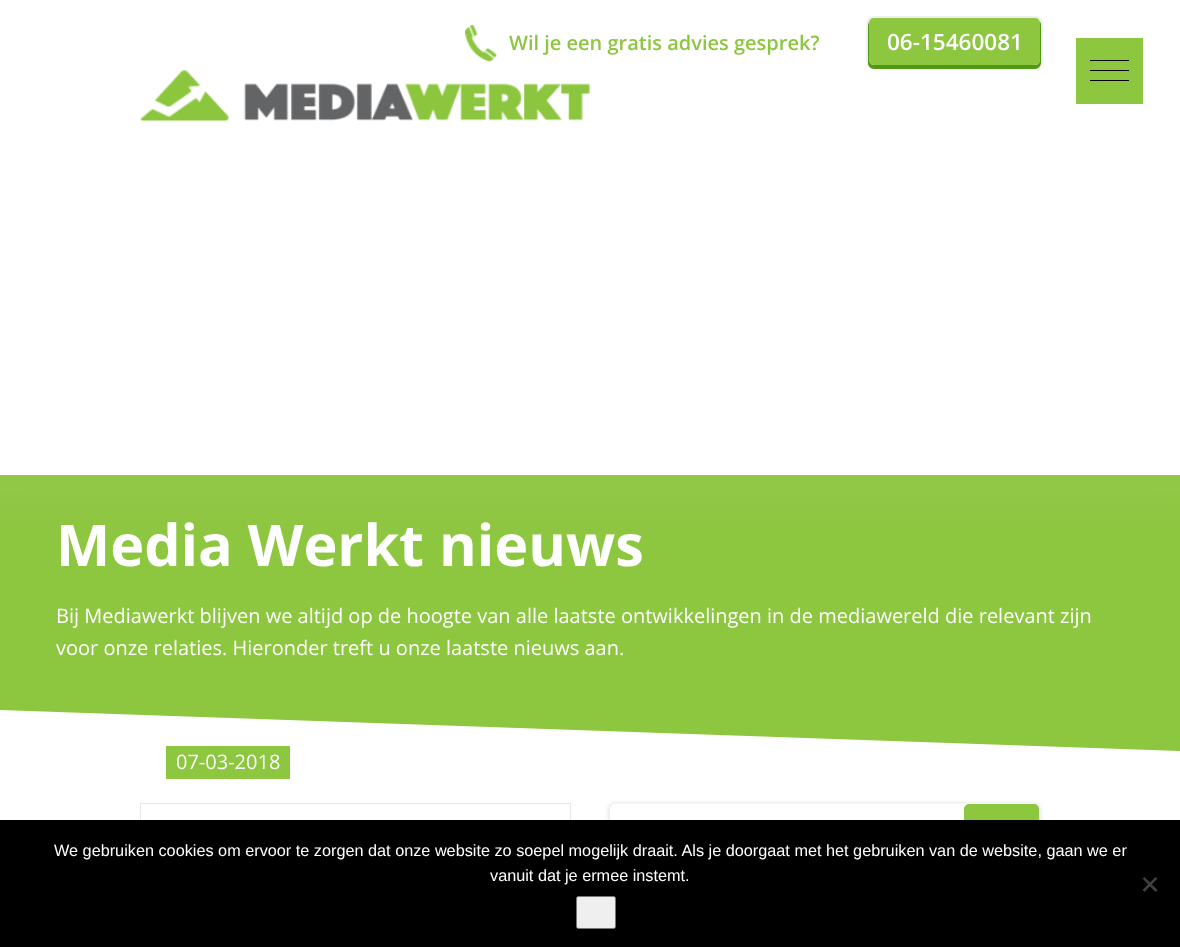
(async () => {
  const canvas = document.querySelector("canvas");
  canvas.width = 1180;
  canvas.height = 947;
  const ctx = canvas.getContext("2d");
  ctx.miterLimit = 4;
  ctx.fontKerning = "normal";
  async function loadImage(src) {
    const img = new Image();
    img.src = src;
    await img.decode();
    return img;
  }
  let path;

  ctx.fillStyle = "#ffffff";
  ctx.fillRect(0, 0, 1180, 947);
  ctx.fillStyle = "#8dc63f";
  ctx.fillRect(0, 475, 1180, 276);
  ctx.save();
  ctx.beginPath();
  ctx.rect(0, 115, 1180, 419);
  ctx.clip();
  ctx.fillStyle = "#ffffff";
  ctx.filter = "blur(119px)";
  ctx.beginPath();
  ctx.rect(-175, -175, 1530, 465);
  ctx.fill();
  ctx.filter = "none";
  ctx.restore();
  ctx.drawImage(await loadImage("img/1.png"), 465, 25, 32, 37);
  ctx.fillStyle = "#efefef";
  ctx.filter = "blur(0.5px)";
  ctx.beginPath();
  ctx.roundRect(866, 16, 177, 53, 8);
  ctx.fill();
  ctx.filter = "none";
  ctx.fillStyle = "#4e9a10";
  path = new Path2D("M869 22L868 25V63C868 66 871 69 874 69H1035C1038 69 1041 66 1041 63V25C1041 24 1041 23 1040 22V54C1040 58 1041 65 1035 65H874C868 65 869 58 869 54Z");
  ctx.fill(path);
  ctx.fillStyle = "#8dc63f";
  ctx.beginPath();
  ctx.roundRect(869, 18, 171, 47, 5);
  ctx.fill();
  ctx.drawImage(await loadImage("img/2.png"), 140, 69, 450, 53);
  for (const [x, y, w, h, color] of [
    [1076, 38, 67, 66, "#8dc63f"],
    [1090, 70, 39, 1, "#000000"],
    [1090, 60, 39, 1, "#000000"],
    [1090, 80, 39, 1, "#000000"],
  ]) {
    ctx.fillStyle = color;
    ctx.fillRect(x, y, w, h);
  }
  ctx.save();
  ctx.beginPath();
  ctx.rect(0, 475, 1180, 278);
  ctx.clip();
  ctx.fillStyle = "#ffffff";
  path = new Path2D("M0 710L1180 751V835L0 794Z");
  ctx.fill(path);
  ctx.restore();
  ctx.strokeStyle = "#e8e8e8";
  ctx.strokeRect(140.5, 803.5, 430, 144);
  ctx.fillStyle = "#8dc63f";
  ctx.fillRect(166, 746, 124, 33);
  ctx.fillStyle = "rgba(0, 0, 0, 0.14)";
  ctx.filter = "blur(2.5px)";
  ctx.beginPath();
  ctx.roundRect(609, 804, 431, 67, 6);
  ctx.fill();
  ctx.filter = "none";
  ctx.fillStyle = "#ffffff";
  ctx.beginPath();
  ctx.roundRect(609, 803, 431, 67, 6);
  ctx.fill();
  path = new Path2D("M611 867.5C610 866.5 609.5 865 609.5 864V809C609.5 807.5 610 806 611 805C612 803.5 613.5 803 615 803H1034C1035 803 1036.5 803.5 1037.5 805C1039 806 1039.5 807.5 1039.5 809V864C1039.5 865 1039 866.5 1037.5 867.5");
  ctx.strokeStyle = "#eeeeee";
  ctx.lineWidth = 1.2;
  ctx.stroke(path);
  ctx.fillStyle = "#8dc63f";
  ctx.beginPath();
  ctx.roundRect(964, 804, 75, 65, 5);
  ctx.fill();
  ctx.fillStyle = "#000000";
  ctx.fillRect(0, 820, 1180, 127);
  ctx.fillStyle = "#404040";
  path = new Path2D("M1155.5 877L1157.5 878.5L1144.5 892L1142.5 890Z");
  ctx.fill(path);
  path = new Path2D("M1142.5 878.5L1144.5 877L1157.5 890L1155.5 892Z");
  ctx.fill(path);
  ctx.fillStyle = "#efefef";
  ctx.beginPath();
  ctx.roundRect(576.5, 896.5, 39, 32, 2);
  ctx.fill();
  ctx.strokeStyle = "#767676";
  ctx.lineWidth = 1;
  ctx.stroke();
  ctx.font = "600 20px Open Sans";
  ctx.fillStyle = "#8dc63f";
  ctx.fillText("Wil je een gratis advies gesprek?", 509, 50);
  ctx.font = "600 22.5px Open Sans";
  ctx.fillStyle = "#ffffff";
  ctx.fillText("06-15460081", 887, 50);
  ctx.font = "bold 57.5px Open Sans";
  ctx.fillText("Media Werkt nieuws", 56, 566);
  ctx.font = "20px Open Sans";
  for (const [text, x, y] of [
    ["Bij Mediawerkt blijven we altijd op de hoogte van alle laatste ontwikkelingen in de mediawereld die relevant zijn", 56, 623],
    ["voor onze relaties. Hieronder treft u onze laatste nieuws aan.", 56, 655],
    ["07-03-2018", 176, 769],
  ]) {
    ctx.fillText(text, x, y);
  }
  ctx.font = "16.25px Liberation Sans";
  ctx.fillText("We gebruiken cookies om ervoor te zorgen dat onze website zo soepel mogelijk draait. Als je doorgaat met het gebruiken van de website, gaan we er", 54, 856);
  ctx.fillText("vanuit dat je ermee instemt.", 490, 881);
})();
